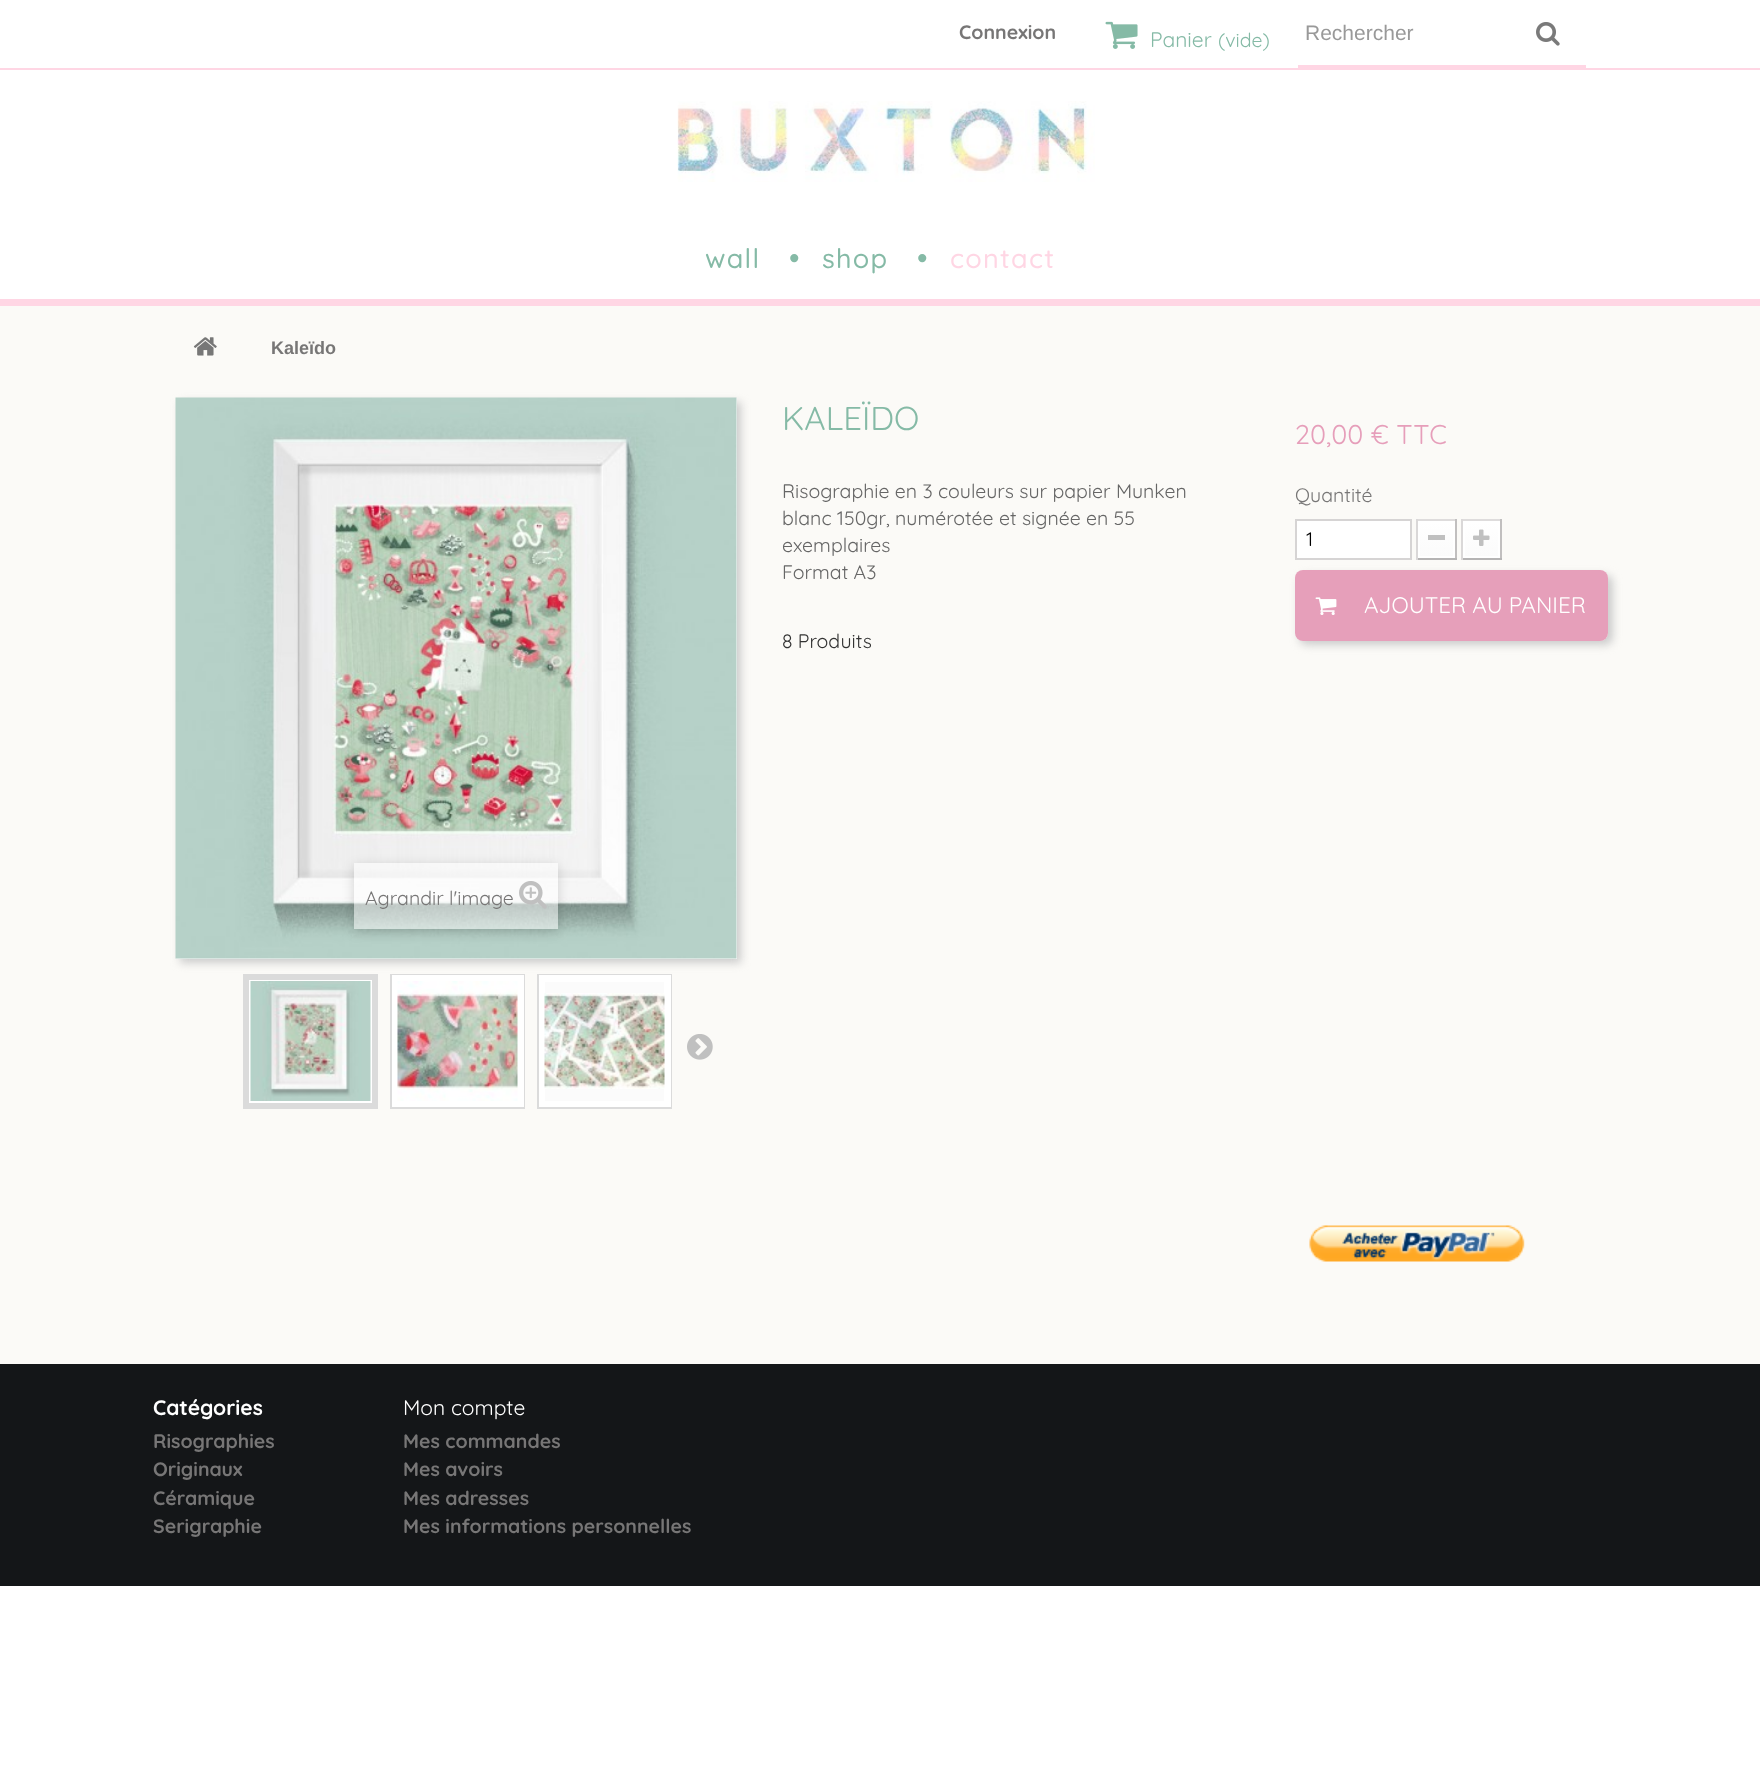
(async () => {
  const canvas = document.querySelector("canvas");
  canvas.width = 1760;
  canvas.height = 1791;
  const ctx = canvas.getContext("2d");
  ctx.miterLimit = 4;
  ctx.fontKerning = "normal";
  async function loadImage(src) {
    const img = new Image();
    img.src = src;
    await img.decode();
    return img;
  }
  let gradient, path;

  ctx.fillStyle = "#ffffff";
  ctx.fillRect(0, 0, 1760, 1791);
  ctx.fillStyle = "#ffd6e4";
  ctx.fillRect(0, 299, 1760, 7);
  ctx.fillRect(0, 68, 1760, 2);
  ctx.drawImage(await loadImage("img/1.png"), 1105, 21, 33, 28);
  ctx.fillRect(1298, 65, 288, 3);
  ctx.drawImage(await loadImage("img/2.png"), 1536, 22, 24, 24);
  ctx.drawImage(await loadImage("img/3.png"), 677, 101, 418, 81);
  ctx.fillStyle = "#fbfaf7";
  ctx.fillRect(0, 306, 1760, 1058);
  ctx.drawImage(await loadImage("img/4.png"), 193, 337, 24, 19);
  ctx.fillStyle = "#ffffff";
  ctx.beginPath();
  ctx.rect(1296, 520, 115, 39);
  ctx.fill();
  ctx.strokeStyle = "#d6d4d4";
  ctx.lineWidth = 2;
  ctx.stroke();
  for (const [x, y, w, h, color] of [
    [1416, 519, 41, 2, "#dedcdc"],
    [1455, 519, 2, 41, "#c1bfbf"],
    [1416, 558, 41, 2, "#b5b4b4"],
    [1416, 519, 2, 41, "#dad8d8"],
  ]) {
    ctx.fillStyle = color;
    ctx.fillRect(x, y, w, h);
  }
  gradient = ctx.createLinearGradient(1436, 522, 1436, 557);
  gradient.addColorStop(0, "#ffffff");
  gradient.addColorStop(1, "#fbfbfb");
  ctx.fillStyle = gradient;
  ctx.fillRect(1420, 523, 33, 33);
  ctx.strokeStyle = "#ffffff";
  ctx.strokeRect(1419, 522, 35, 35);
  for (const [x, y, w, h, color] of [
    [1428, 535, 17, 5, "#c0c0c0"],
    [1461, 519, 41, 2, "#dedcdc"],
    [1500, 519, 2, 41, "#c1bfbf"],
    [1461, 558, 41, 2, "#b5b4b4"],
    [1461, 519, 2, 41, "#dad8d8"],
  ]) {
    ctx.fillStyle = color;
    ctx.fillRect(x, y, w, h);
  }
  gradient = ctx.createLinearGradient(1481, 522, 1481, 557);
  gradient.addColorStop(0, "#ffffff");
  gradient.addColorStop(1, "#fbfbfb");
  ctx.fillStyle = gradient;
  ctx.fillRect(1465, 523, 33, 33);
  ctx.strokeRect(1464, 522, 35, 35);
  ctx.drawImage(await loadImage("img/5.png"), 1473, 529, 17, 17);
  ctx.save();
  path = new Path2D("M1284 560H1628V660H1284ZM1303 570H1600C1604.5 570 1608 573.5 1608 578V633C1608 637.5 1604.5 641 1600 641H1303C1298.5 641 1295 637.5 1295 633V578C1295 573.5 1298.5 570 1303 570Z");
  ctx.clip(path, "evenodd");
  ctx.fillStyle = "#cccccc";
  ctx.filter = "blur(4.5px)";
  ctx.beginPath();
  ctx.roundRect(1299, 575, 314, 70, 8);
  ctx.fill();
  ctx.filter = "none";
  ctx.restore();
  ctx.fillStyle = "rgba(221, 119, 160, 0.7)";
  ctx.beginPath();
  ctx.roundRect(1295, 570, 313, 71, 8);
  ctx.fill();
  ctx.drawImage(await loadImage("img/6.png"), 1315, 597, 22, 18);
  ctx.strokeStyle = "#dbdbdb";
  ctx.strokeRect(244, 975, 133, 133);
  ctx.lineWidth = 5;
  ctx.strokeRect(247.5, 977.5, 127, 127);
  ctx.lineWidth = 2;
  ctx.strokeRect(391, 975, 133, 133);
  ctx.strokeStyle = "#ffffff";
  ctx.lineWidth = 5;
  ctx.strokeRect(394.5, 977.5, 127, 127);
  ctx.strokeStyle = "#dbdbdb";
  ctx.lineWidth = 2;
  ctx.strokeRect(538, 975, 133, 133);
  ctx.fillStyle = "#fbfbfb";
  ctx.fillRect(545, 982, 119, 119);
  ctx.strokeStyle = "#ffffff";
  ctx.lineWidth = 5;
  ctx.strokeRect(541.5, 977.5, 127, 127);
  ctx.fillStyle = "#cccccc";
  ctx.filter = "blur(4.5px)";
  ctx.beginPath();
  ctx.rect(180, 402, 561, 561);
  ctx.fill();
  ctx.filter = "none";
  ctx.fillStyle = "#fbfbfb";
  ctx.fillRect(176, 398, 561, 561);
  ctx.drawImage(await loadImage("img/7.png"), 175, 397, 562, 562);
  ctx.save();
  path = new Path2D("M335 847H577V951H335ZM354 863H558V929H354Z");
  ctx.clip(path, "evenodd");
  ctx.fillStyle = "rgba(0, 0, 0, 0.16)";
  ctx.filter = "blur(6px)";
  ctx.beginPath();
  ctx.rect(354, 866, 204, 66);
  ctx.fill();
  ctx.filter = "none";
  ctx.restore();
  ctx.fillStyle = "rgba(255, 255, 255, 0.5)";
  ctx.fillRect(354, 863, 204, 66);
  ctx.drawImage(await loadImage("img/8.png"), 519, 881, 28, 28);
  ctx.lineWidth = 2;
  ctx.strokeRect(250, 981, 121, 121);
  ctx.drawImage(await loadImage("img/9.png"), 250, 981, 121, 120);
  ctx.strokeRect(397, 981, 121, 121);
  ctx.drawImage(await loadImage("img/10.png"), 397, 981, 121, 120);
  ctx.strokeRect(544, 981, 121, 121);
  ctx.drawImage(await loadImage("img/11.png"), 544, 993, 121, 96);
  ctx.drawImage(await loadImage("img/12.png"), 687, 1034, 26, 26);
  ctx.drawImage(await loadImage("img/13.png"), 1309, 1225, 216, 37);
  ctx.fillStyle = "#141618";
  ctx.fillRect(0, 1364, 1760, 222);
  ctx.font = "bold 19.5px Quicksand";
  ctx.fillStyle = "#777676";
  ctx.fillText("Connexion", 959, 39);
  ctx.font = "21px Quicksand";
  ctx.fillStyle = "#85baa6";
  ctx.fillText("Panier", 1150, 47);
  ctx.font = "19.5px Quicksand";
  ctx.fillText("(vide)", 1218, 47);
  ctx.font = "21px Liberation Sans";
  ctx.fillStyle = "#999999";
  ctx.fillText("Rechercher", 1305, 40);
  ctx.letterSpacing = "1.25px";
  ctx.font = "500 27px Quicksand";
  ctx.fillStyle = "#85baa6";
  ctx.fillText("wall", 705, 268);
  ctx.letterSpacing = "0px";
  ctx.font = "30px Liberation Sans";
  ctx.fillText("•", 789, 268);
  ctx.letterSpacing = "1.25px";
  ctx.font = "500 27px Quicksand";
  ctx.fillText("shop", 822, 268);
  ctx.letterSpacing = "0px";
  ctx.font = "30px Liberation Sans";
  ctx.fillText("•", 917, 268);
  ctx.letterSpacing = "1.25px";
  ctx.font = "500 27px Quicksand";
  ctx.fillStyle = "#ffd6e4";
  ctx.fillText("contact", 950, 268);
  ctx.letterSpacing = "0px";
  ctx.font = "bold 18px Liberation Sans";
  ctx.fillStyle = "#777676";
  ctx.fillText("Kaleïdo", 271, 354);
  ctx.font = "33px Quicksand";
  ctx.fillStyle = "#85baa6";
  ctx.fillText("KALEÏDO", 782, 430);
  ctx.font = "19.5px Quicksand";
  ctx.fillStyle = "#666666";
  for (const [text, x, y] of [
    ["Risographie en 3 couleurs sur papier Munken", 782, 498],
    ["blanc 150gr, numérotée et signée en 55", 782, 525],
    ["exemplaires", 782, 552],
    ["Format A3", 782, 579],
  ]) {
    ctx.fillText(text, x, y);
  }
  ctx.fillStyle = "#333333";
  ctx.fillText("8 Produits", 782, 648);
  ctx.font = "27px Quicksand";
  ctx.fillStyle = "#e69eba";
  ctx.fillText("20,00 € TTC", 1295, 444);
  ctx.font = "19.5px Quicksand";
  ctx.fillStyle = "#777676";
  ctx.fillText("Quantité", 1295, 502);
  ctx.fillStyle = "#000000";
  ctx.fillText("1", 1306, 546);
  ctx.font = "22.5px Quicksand";
  ctx.fillStyle = "#ffffff";
  ctx.fillText("AJOUTER AU PANIER", 1364, 613);
  ctx.font = "19.5px Quicksand";
  ctx.fillStyle = "#777676";
  ctx.fillText("Agrandir l'image", 365, 905);
  ctx.font = "bold 21px Quicksand";
  ctx.fillStyle = "#ffffff";
  ctx.fillText("Catégories", 153, 1415);
  ctx.font = "bold 19.5px Quicksand";
  ctx.fillStyle = "#777676";
  for (const [text, x, y] of [
    ["Risographies", 153, 1448],
    ["Originaux", 153, 1476],
    ["Céramique", 153, 1505],
    ["Serigraphie", 153, 1533],
  ]) {
    ctx.fillText(text, x, y);
  }
  ctx.font = "21px Quicksand";
  ctx.fillStyle = "#ffffff";
  ctx.fillText("Mon compte", 403, 1415);
  ctx.font = "bold 19.5px Quicksand";
  ctx.fillStyle = "#777676";
  for (const [text, x, y] of [
    ["Mes commandes", 403, 1448],
    ["Mes avoirs", 403, 1476],
    ["Mes adresses", 403, 1505],
    ["Mes informations personnelles", 403, 1533],
  ]) {
    ctx.fillText(text, x, y);
  }
})();
